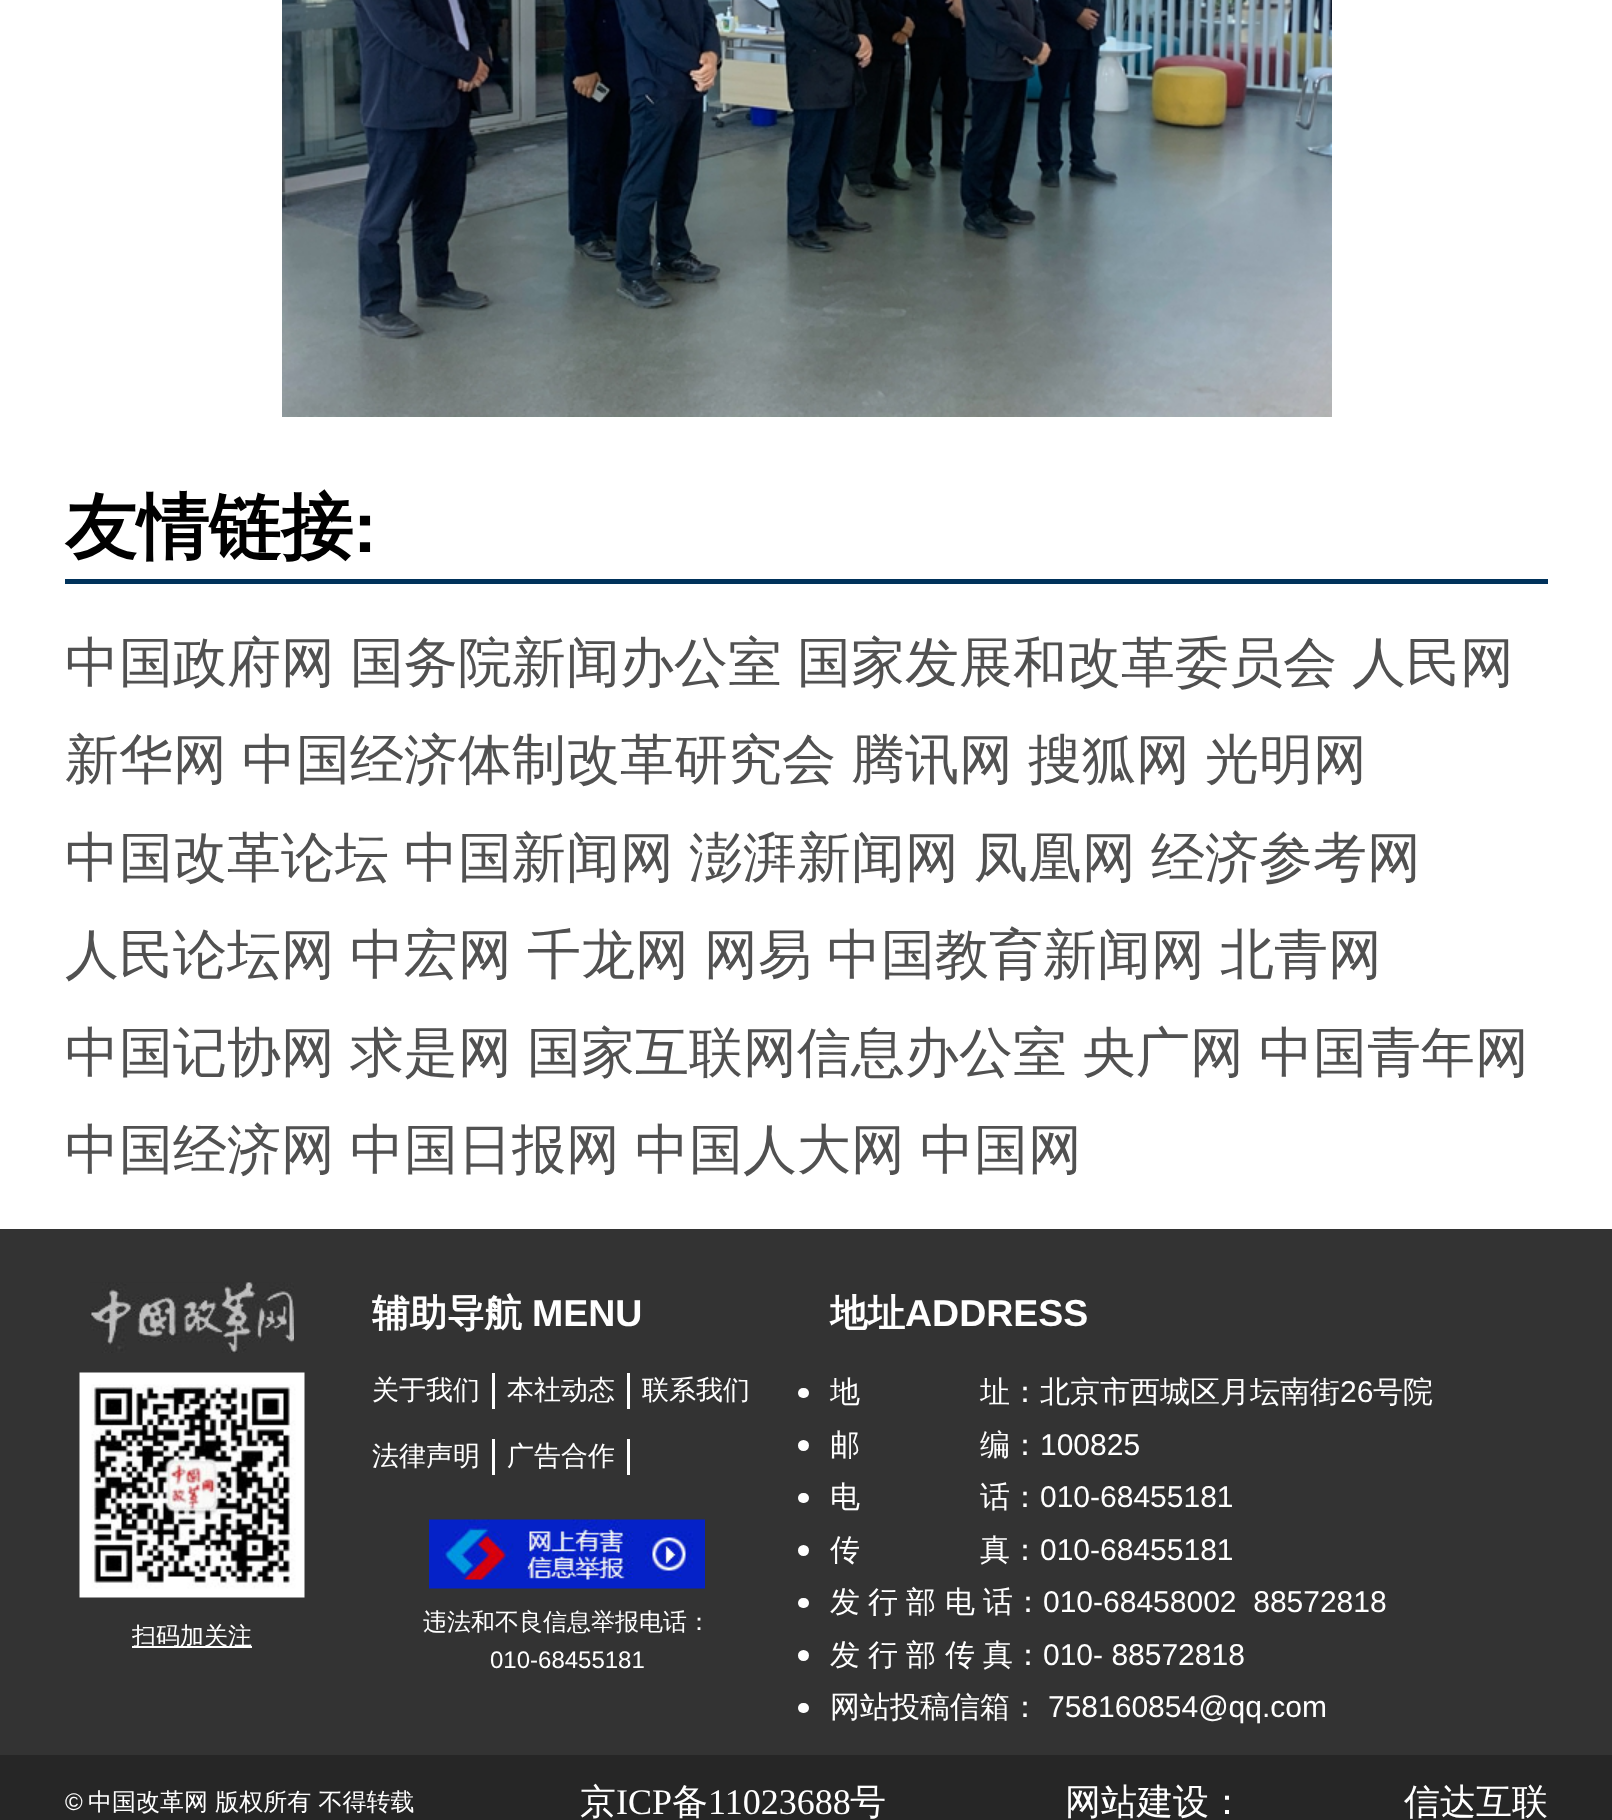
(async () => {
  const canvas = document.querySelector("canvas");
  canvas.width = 1612;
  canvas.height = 1820;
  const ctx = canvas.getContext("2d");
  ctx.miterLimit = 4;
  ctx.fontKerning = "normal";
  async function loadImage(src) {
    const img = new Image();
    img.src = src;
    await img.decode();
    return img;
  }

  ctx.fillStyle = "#ffffff";
  ctx.fillRect(0, 0, 1612, 1820);
  ctx.drawImage(await loadImage("img/1.png"), 282, 0, 1050, 417);
  ctx.fillStyle = "#00325b";
  ctx.fillRect(65, 579, 1483, 5);
  ctx.fillStyle = "#333333";
  ctx.fillRect(0, 1229, 1612, 526);
  ctx.drawImage(await loadImage("img/2.png"), 90, 1282, 204, 71);
  ctx.drawImage(await loadImage("img/3.png"), 79, 1372, 226, 226);
  for (const [x, y, w, h, color] of [
    [132, 1646, 120, 2, "#ffffff"],
    [492, 1373, 3, 36, "#ffffff"],
    [627, 1373, 3, 36, "#ffffff"],
    [492, 1439, 3, 36, "#ffffff"],
    [627, 1439, 3, 36, "#ffffff"],
  ]) {
    ctx.fillStyle = color;
    ctx.fillRect(x, y, w, h);
  }
  ctx.drawImage(await loadImage("img/4.png"), 429, 1519, 276, 70);
  ctx.beginPath();
  ctx.roundRect(798, 1388, 11, 10, 5);
  ctx.fill();
  ctx.beginPath();
  ctx.arc(803.5, 1445.5, 5.5, 0, Math.PI * 2);
  ctx.fill();
  ctx.beginPath();
  ctx.roundRect(798, 1493, 11, 10, 5);
  ctx.fill();
  ctx.beginPath();
  ctx.arc(803.5, 1550.5, 5.5, 0, Math.PI * 2);
  ctx.fill();
  ctx.beginPath();
  ctx.roundRect(798, 1598, 11, 10, 5);
  ctx.fill();
  ctx.beginPath();
  ctx.arc(803.5, 1655.5, 5.5, 0, Math.PI * 2);
  ctx.fill();
  ctx.beginPath();
  ctx.roundRect(798, 1703, 11, 10, 5);
  ctx.fill();
  ctx.fillStyle = "#262626";
  ctx.fillRect(0, 1755, 1612, 65);
  ctx.font = "bold 72px WenQuanYi Zen Hei";
  ctx.fillStyle = "#000000";
  ctx.fillText("友情链接", 65, 552);
  ctx.font = "bold 72px Liberation Sans";
  ctx.fillText(":", 353, 552);
  ctx.font = "500 54px WenQuanYi Zen Hei";
  ctx.fillStyle = "#515151";
  for (const [text, x, y] of [
    ["中国政府网", 65, 681],
    ["国务院新闻办公室", 350, 681],
    ["国家发展和改革委员会", 797, 681],
    ["人民网", 1352, 681],
    ["新华网", 65, 778],
    ["中国经济体制改革研究会", 242, 778],
    ["腾讯网", 851, 778],
    ["搜狐网", 1028, 778],
    ["光明网", 1205, 778],
    ["中国改革论坛", 65, 876],
    ["中国新闻网", 404, 876],
    ["澎湃新闻网", 689, 876],
    ["凤凰网", 974, 876],
    ["经济参考网", 1151, 876],
    ["人民论坛网", 65, 973],
    ["中宏网", 350, 973],
    ["千龙网", 527, 973],
    ["网易", 704, 973],
    ["中国教育新闻网", 827, 973],
    ["北青网", 1220, 973],
    ["中国记协网", 65, 1071],
    ["求是网", 350, 1071],
    ["国家互联网信息办公室", 527, 1071],
    ["央广网", 1082, 1071],
    ["中国青年网", 1259, 1071],
    ["中国经济网", 65, 1168],
    ["中国日报网", 350, 1168],
    ["中国人大网", 635, 1168],
    ["中国网", 920, 1168],
  ]) {
    ctx.fillText(text, x, y);
  }
  ctx.font = "500 24px WenQuanYi Zen Hei";
  ctx.fillStyle = "#ffffff";
  ctx.fillText("扫码加关注", 132, 1644);
  ctx.font = "bold 37.5px WenQuanYi Zen Hei";
  ctx.fillText("辅助导航", 372, 1326);
  ctx.font = "bold 37.5px Liberation Sans";
  ctx.fillText("MENU", 532, 1326);
  ctx.font = "500 27px WenQuanYi Zen Hei";
  for (const [text, x, y] of [
    ["关于我们", 372, 1399],
    ["本社动态", 507, 1399],
    ["联系我们", 642, 1399],
    ["法律声明", 372, 1465],
    ["广告合作", 507, 1465],
  ]) {
    ctx.fillText(text, x, y);
  }
  ctx.font = "500 24px WenQuanYi Zen Hei";
  ctx.fillText("违法和不良信息举报电话：", 423, 1630);
  ctx.font = "24px Liberation Sans";
  ctx.fillText("010-68455181", 490, 1668);
  ctx.font = "bold 37.5px WenQuanYi Zen Hei";
  ctx.fillText("地址", 830, 1326);
  ctx.font = "bold 37.5px Liberation Sans";
  ctx.fillText("ADDRESS", 905, 1326);
  ctx.font = "500 30px WenQuanYi Zen Hei";
  ctx.fillText("地　　　　址：北京市西城区月坛南街", 830, 1402);
  ctx.font = "30px Liberation Sans";
  ctx.fillText("26", 1340, 1402);
  ctx.font = "500 30px WenQuanYi Zen Hei";
  ctx.fillText("号院", 1373, 1402);
  ctx.fillText("邮　　　　编：", 830, 1455);
  ctx.font = "30px Liberation Sans";
  ctx.fillText("100825", 1040, 1455);
  ctx.font = "500 30px WenQuanYi Zen Hei";
  ctx.fillText("电　　　　话：", 830, 1507);
  ctx.font = "30px Liberation Sans";
  ctx.fillText("010-68455181", 1040, 1507);
  ctx.font = "500 30px WenQuanYi Zen Hei";
  ctx.fillText("传　　　　真：", 830, 1560);
  ctx.font = "30px Liberation Sans";
  ctx.fillText("010-68455181", 1040, 1560);
  ctx.font = "500 30px WenQuanYi Zen Hei";
  for (const [text, x, y] of [
    ["发", 830, 1612],
    ["行", 868, 1612],
    ["部", 906, 1612],
    ["电", 945, 1612],
    ["话：", 983, 1612],
  ]) {
    ctx.fillText(text, x, y);
  }
  ctx.font = "30px Liberation Sans";
  ctx.fillText("010-68458002  88572818", 1043, 1612);
  ctx.font = "500 30px WenQuanYi Zen Hei";
  for (const [text, x, y] of [
    ["发", 830, 1665],
    ["行", 868, 1665],
    ["部", 906, 1665],
    ["传", 945, 1665],
    ["真：", 983, 1665],
  ]) {
    ctx.fillText(text, x, y);
  }
  ctx.font = "30px Liberation Sans";
  ctx.fillText("010- 88572818", 1043, 1665);
  ctx.font = "500 30px WenQuanYi Zen Hei";
  ctx.fillText("网站投稿信箱：", 830, 1717);
  ctx.font = "30px Liberation Sans";
  ctx.fillText("758160854@qq.com", 1048, 1717);
  ctx.font = "24px Liberation Sans";
  ctx.fillText("©", 65, 1810);
  ctx.font = "500 24px WenQuanYi Zen Hei";
  ctx.fillText("中国改革网 版权所有 不得转载", 88, 1810);
  ctx.font = "500 36px WenQuanYi Zen Hei";
  ctx.fillText("京", 580, 1814);
  ctx.font = "36px Liberation Serif";
  ctx.fillText("ICP", 616, 1814);
  ctx.font = "500 36px WenQuanYi Zen Hei";
  ctx.fillText("备", 672, 1814);
  ctx.font = "36px Liberation Serif";
  ctx.fillText("11023688", 708, 1814);
  ctx.font = "500 36px WenQuanYi Zen Hei";
  for (const [text, x, y] of [
    ["号", 850, 1814],
    ["网站建设：", 1065, 1814],
    ["信达互联", 1404, 1814],
  ]) {
    ctx.fillText(text, x, y);
  }
})();
